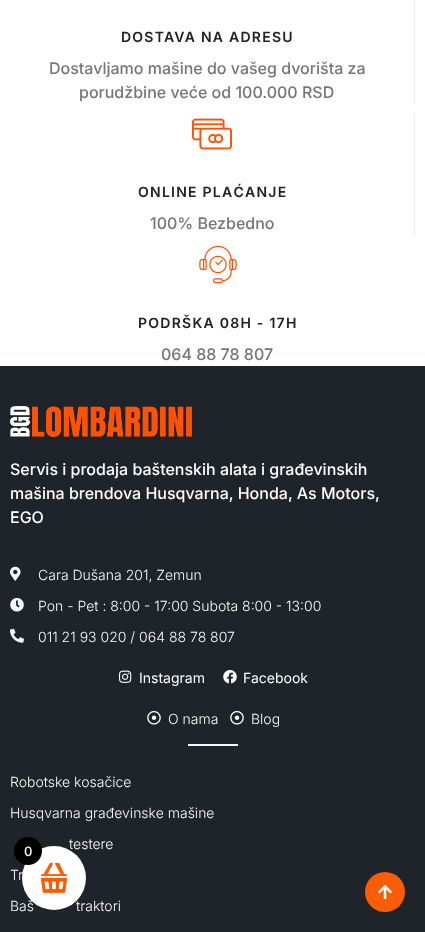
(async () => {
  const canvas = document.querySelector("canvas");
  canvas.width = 425;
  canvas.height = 932;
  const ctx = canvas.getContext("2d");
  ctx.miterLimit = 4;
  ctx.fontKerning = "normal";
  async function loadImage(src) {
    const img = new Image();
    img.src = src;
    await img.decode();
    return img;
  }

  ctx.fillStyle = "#ffffff";
  ctx.fillRect(0, 0, 425, 932);
  ctx.fillStyle = "#eaeaea";
  ctx.fillRect(414, 0, 1, 104);
  ctx.fillRect(414, 114, 1, 121);
  ctx.drawImage(await loadImage("img/1.png"), 192, 118, 40, 32);
  ctx.drawImage(await loadImage("img/2.png"), 199, 245, 38, 39);
  ctx.fillStyle = "#1f232a";
  ctx.fillRect(0, 366, 425, 566);
  ctx.drawImage(await loadImage("img/3.png"), 10, 406, 182, 31);
  ctx.drawImage(await loadImage("img/4.png"), 10, 566, 11, 15);
  ctx.drawImage(await loadImage("img/5.png"), 10, 598, 14, 14);
  ctx.drawImage(await loadImage("img/6.png"), 10, 628, 14, 15);
  ctx.drawImage(await loadImage("img/7.png"), 119, 670, 13, 13);
  ctx.drawImage(await loadImage("img/8.png"), 223, 670, 14, 14);
  ctx.drawImage(await loadImage("img/9.png"), 147, 711, 14, 14);
  ctx.drawImage(await loadImage("img/9.png"), 230, 711, 14, 14);
  ctx.fillStyle = "#f9f9f9";
  ctx.fillRect(188, 744, 50, 2);
  ctx.fillStyle = "#fc5c04";
  ctx.beginPath();
  ctx.arc(385, 892, 20, 0, Math.PI * 2);
  ctx.fill();
  ctx.drawImage(await loadImage("img/10.png"), 378, 885, 14, 14);
  ctx.letterSpacing = "1.25px";
  ctx.font = "600 14px Inter";
  ctx.fillStyle = "#212121";
  ctx.fillText("DOSTAVA NA ADRESU", 121, 42);
  ctx.letterSpacing = "0px";
  ctx.font = "500 16px Inter";
  ctx.fillStyle = "#767676";
  ctx.fillText("Dostavljamo mašine do vašeg dvorišta za", 49, 74);
  ctx.fillText("porudžbine veće od 100.000 RSD", 79, 98);
  ctx.letterSpacing = "1.25px";
  ctx.font = "600 14px Inter";
  ctx.fillStyle = "#212121";
  ctx.fillText("ONLINE PLAĆANJE", 138, 197);
  ctx.letterSpacing = "0px";
  ctx.font = "500 16px Inter";
  ctx.fillStyle = "#767676";
  ctx.fillText("100% Bezbedno", 150, 229);
  ctx.letterSpacing = "1.25px";
  ctx.font = "600 14px Inter";
  ctx.fillStyle = "#212121";
  ctx.fillText("PODRŠKA 08H - 17H", 138, 328);
  ctx.letterSpacing = "0px";
  ctx.font = "500 16px Inter";
  ctx.fillStyle = "#767676";
  ctx.fillText("064 88 78 807", 161, 360);
  ctx.fillStyle = "#ffffff";
  for (const [text, x, y] of [
    ["Servis i prodaja baštenskih alata i građevinskih", 10, 475],
    ["mašina brendova Husqvarna, Honda, As Motors,", 10, 499],
    ["EGO", 10, 523],
  ]) {
    ctx.fillText(text, x, y);
  }
  ctx.font = "300 14px Inter";
  ctx.fillStyle = "#f9f9f9";
  for (const [text, x, y] of [
    ["Cara Dušana 201, Zemun", 38, 580],
    ["Pon - Pet : 8:00 - 17:00 Subota 8:00 - 13:00", 38, 611],
    ["011 21 93 020 / 064 88 78 807", 38, 642],
  ]) {
    ctx.fillText(text, x, y);
  }
  ctx.font = "14px Inter";
  ctx.fillStyle = "#ffffff";
  ctx.fillText("Instagram", 139, 683);
  ctx.fillText("Facebook", 243, 683);
  ctx.font = "300 14px Inter";
  ctx.fillStyle = "#f9f9f9";
  for (const [text, x, y] of [
    ["O nama", 168, 724],
    ["Blog", 251, 724],
    ["Robotske kosačice", 10, 787],
    ["Husqvarna građevinske mašine", 10, 818],
    ["testere", 69, 849],
    ["Tr", 10, 880],
    ["Baš", 10, 911],
    ["traktori", 76, 911],
  ]) {
    ctx.fillText(text, x, y);
  }
  ctx.fillStyle = "#ffffff";
  ctx.beginPath();
  ctx.arc(54, 878, 32, 0, Math.PI * 2);
  ctx.fill();
  ctx.drawImage(await loadImage("img/11.png"), 40, 862, 28, 31);
  ctx.fillStyle = "#000000";
  ctx.beginPath();
  ctx.arc(28, 851, 14, 0, Math.PI * 2);
  ctx.fill();
  ctx.font = "500 13px Inter";
  ctx.fillStyle = "#ffffff";
  ctx.fillText("0", 24, 856);
})();
